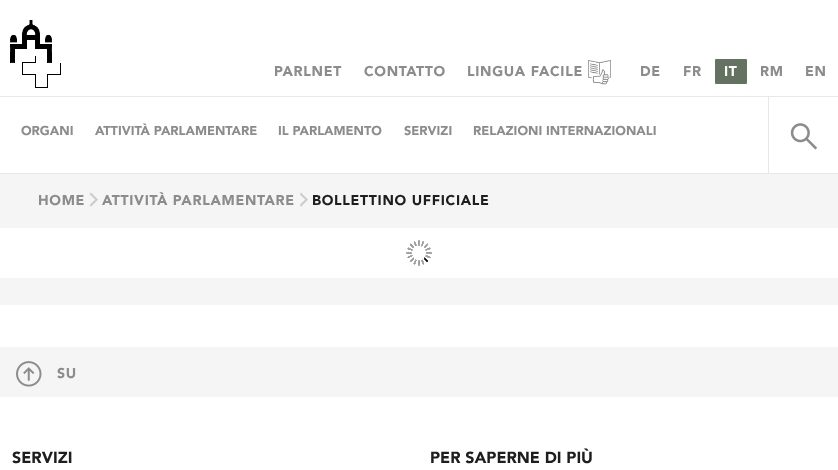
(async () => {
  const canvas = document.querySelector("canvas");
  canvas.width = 838;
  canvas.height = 470;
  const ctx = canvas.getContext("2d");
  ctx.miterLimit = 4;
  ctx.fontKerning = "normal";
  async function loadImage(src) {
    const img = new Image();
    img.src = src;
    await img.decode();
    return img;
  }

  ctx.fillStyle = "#f5f5f5";
  ctx.fillRect(0, 0, 838, 470);
  for (const [x, y, w, h, color] of [
    [0, 0, 838, 173, "#ffffff"],
    [0, 173, 838, 1, "#e8e8e8"],
    [0, 96, 838, 1, "#e8e8e8"],
  ]) {
    ctx.fillStyle = color;
    ctx.fillRect(x, y, w, h);
  }
  ctx.drawImage(await loadImage("img/1.png"), 10, 20, 51, 68);
  ctx.drawImage(await loadImage("img/2.png"), 588, 60, 23, 25);
  ctx.fillStyle = "#647261";
  ctx.beginPath();
  ctx.roundRect(714.5, 58.5, 33, 26, 1.5);
  ctx.fill();
  ctx.strokeStyle = "#ffffff";
  ctx.stroke();
  ctx.fillStyle = "#e8e8e8";
  ctx.fillRect(768, 97, 1, 76);
  ctx.drawImage(await loadImage("img/3.png"), 790, 123, 28, 27);
  ctx.drawImage(await loadImage("img/4.png"), 89, 192, 9, 15);
  ctx.drawImage(await loadImage("img/5.png"), 300, 192, 8, 15);
  ctx.fillStyle = "#ffffff";
  ctx.fillRect(0, 228, 838, 50);
  ctx.drawImage(await loadImage("img/6.png"), 406, 240, 26, 26);
  ctx.fillRect(0, 305, 838, 42);
  ctx.drawImage(await loadImage("img/7.png"), 16, 361, 26, 26);
  ctx.fillRect(0, 397, 838, 73);
  ctx.letterSpacing = "0.7px";
  ctx.font = "900 14px Avenir";
  ctx.fillStyle = "#8c8c8c";
  for (const [text, x, y] of [
    ["PARLNET", 274, 76],
    ["CONTATTO", 364, 76],
    ["LINGUA FACILE", 467, 76],
    ["DE", 640, 76],
    ["FR", 683, 76],
  ]) {
    ctx.fillText(text, x, y);
  }
  ctx.fillStyle = "#ffffff";
  ctx.fillText("IT", 724, 76);
  ctx.fillStyle = "#8c8c8c";
  ctx.fillText("RM", 760, 76);
  ctx.fillText("EN", 805, 76);
  ctx.letterSpacing = "0px";
  ctx.font = "900 12.75px Avenir";
  for (const [text, x, y] of [
    ["ORGANI", 21, 135],
    ["ATTIVITÀ PARLAMENTARE", 95, 135],
    ["IL PARLAMENTO", 278, 135],
    ["SERVIZI", 404, 135],
    ["RELAZIONI INTERNAZIONALI", 473, 135],
  ]) {
    ctx.fillText(text, x, y);
  }
  ctx.letterSpacing = "0.7px";
  ctx.font = "900 14px Avenir";
  ctx.fillText("HOME", 38, 205);
  ctx.fillText("ATTIVITÀ PARLAMENTARE", 102, 205);
  ctx.fillStyle = "#1e1e1e";
  ctx.fillText("BOLLETTINO UFFICIALE", 312, 205);
  ctx.fillStyle = "#8c8c8c";
  ctx.fillText("SU", 57, 378);
  ctx.letterSpacing = "0px";
  ctx.font = "900 16px Avenir";
  ctx.fillStyle = "#1e1e1e";
  ctx.fillText("SERVIZI", 12, 463);
  ctx.fillText("PER SAPERNE DI PIÙ", 430, 463);
})();
